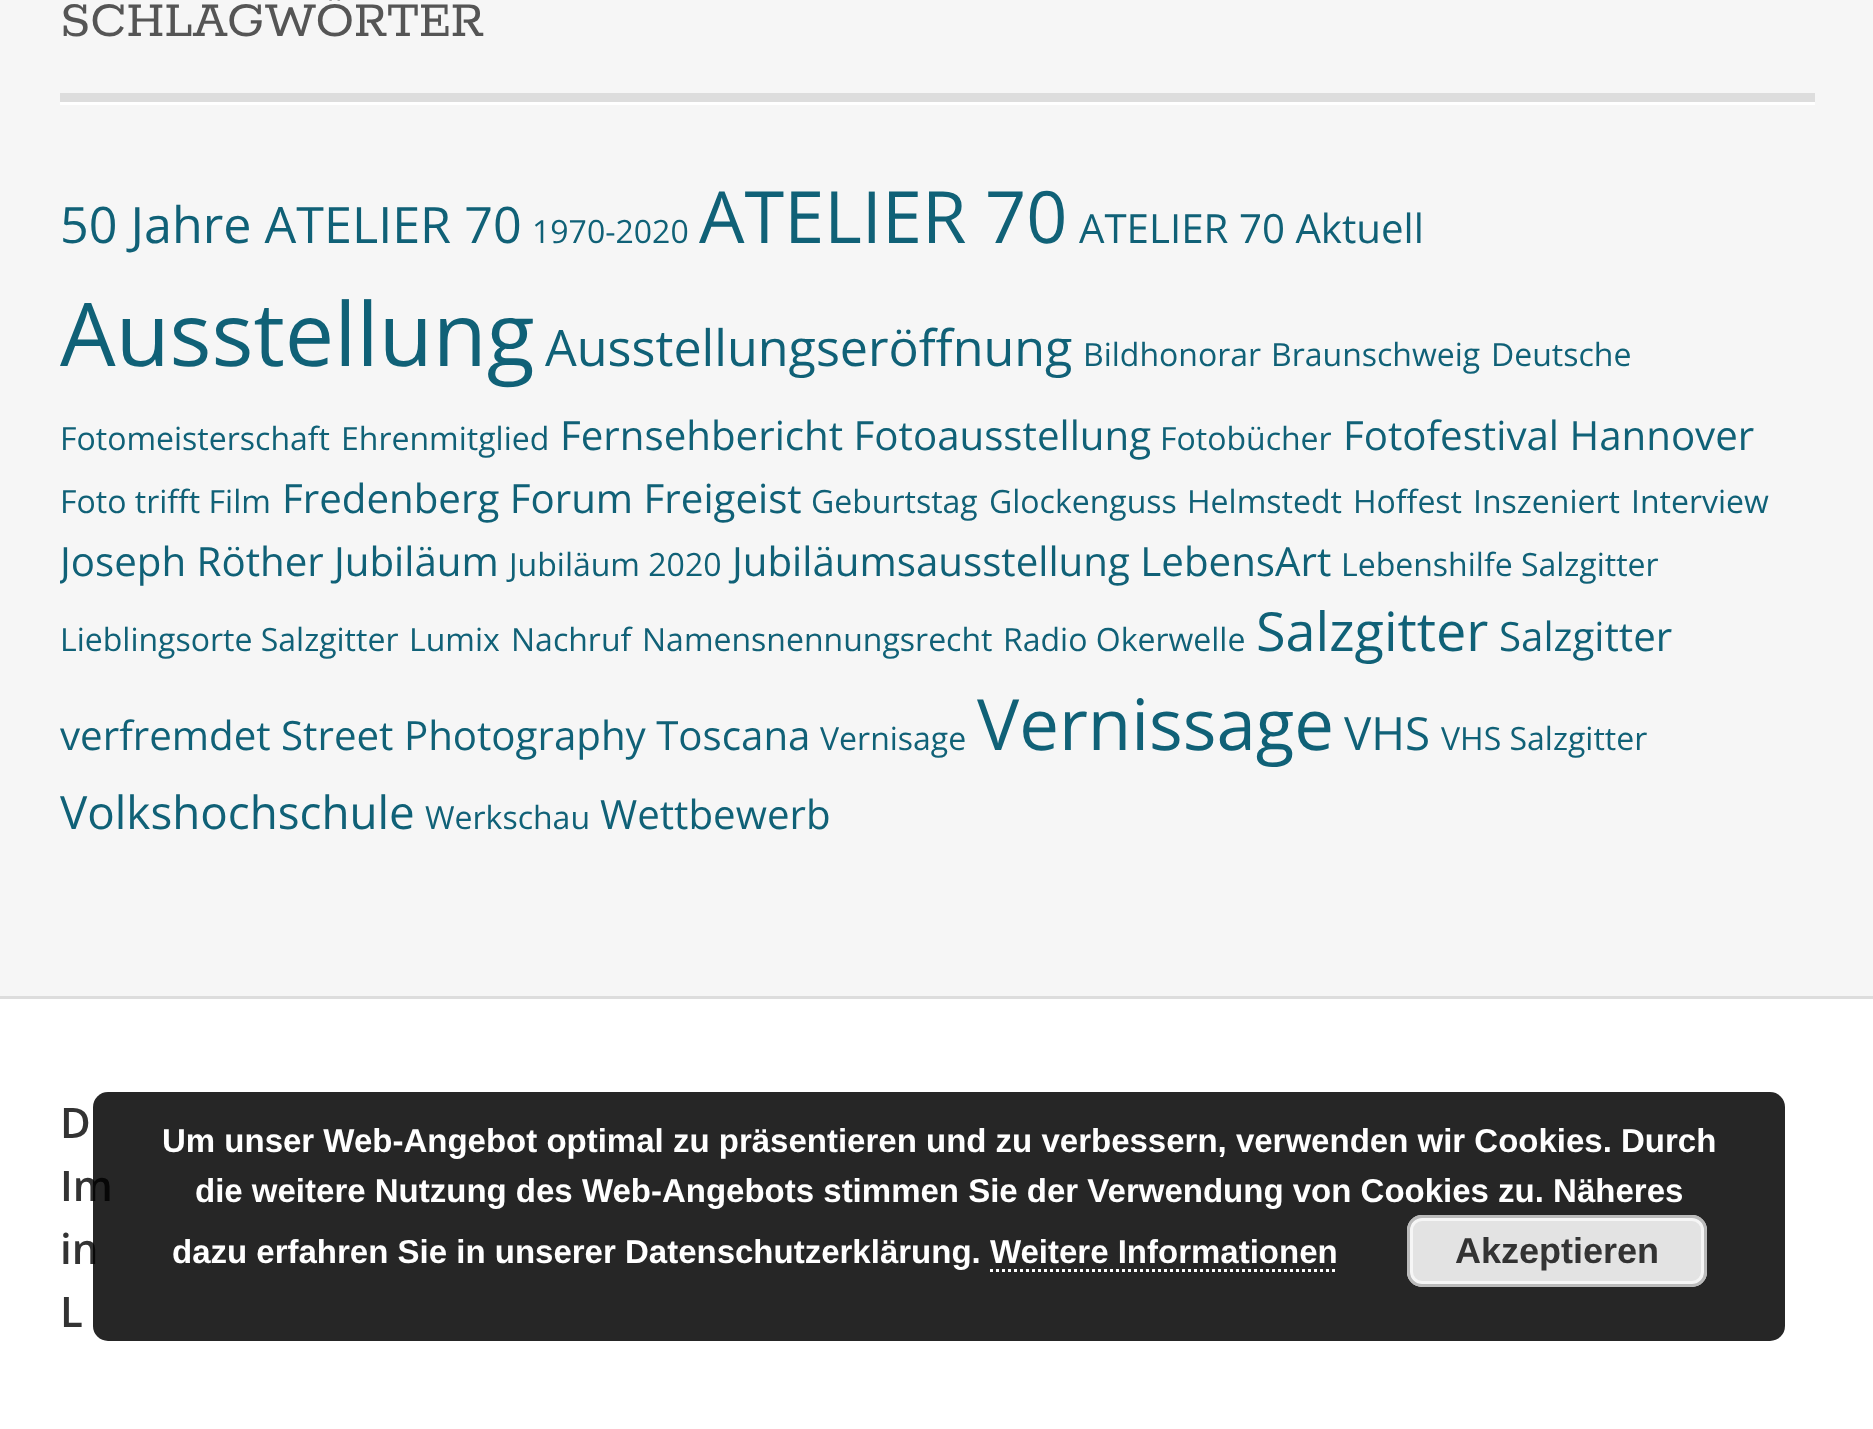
(async () => {
  const canvas = document.querySelector("canvas");
  canvas.width = 1873;
  canvas.height = 1429;
  const ctx = canvas.getContext("2d");
  ctx.miterLimit = 4;
  ctx.fontKerning = "normal";
  let path;

  ctx.fillStyle = "#f6f6f6";
  ctx.fillRect(0, 0, 1873, 1429);
  for (const [x, y, w, h, color] of [
    [60, 102, 1755, 3, "#ffffff"],
    [60, 93, 1755, 9, "#dddddd"],
    [0, 999, 1873, 430, "#ffffff"],
    [0, 996, 1873, 3, "#dddddd"],
  ]) {
    ctx.fillStyle = color;
    ctx.fillRect(x, y, w, h);
  }
  ctx.font = "54px Rokkitt";
  ctx.fillStyle = "#555555";
  ctx.fillText("SCHLAGWÖRTER", 60, 36);
  ctx.font = "50.25px Open Sans";
  ctx.fillStyle = "#106177";
  ctx.fillText("50 Jahre ATELIER 70", 60, 243);
  ctx.font = "32px Open Sans";
  ctx.fillText("1970-2020", 532, 243);
  ctx.font = "72px Open Sans";
  ctx.fillText("ATELIER 70", 699, 243);
  ctx.font = "40.25px Open Sans";
  ctx.fillText("ATELIER 70 Aktuell", 1079, 243);
  ctx.font = "88px Open Sans";
  ctx.fillText("Ausstellung", 60, 366);
  ctx.font = "50.25px Open Sans";
  ctx.fillText("Ausstellungseröffnung", 545, 366);
  ctx.font = "32px Open Sans";
  for (const [text, x, y] of [
    ["Bildhonorar", 1083, 366],
    ["Braunschweig", 1271, 366],
    ["Deutsche", 1491, 366],
    ["Fotomeisterschaft", 60, 450],
    ["Ehrenmitglied", 341, 450],
  ]) {
    ctx.fillText(text, x, y);
  }
  ctx.font = "40.25px Open Sans";
  ctx.fillText("Fernsehbericht Fotoausstellung", 560, 450);
  ctx.font = "32px Open Sans";
  ctx.fillText("Fotobücher", 1160, 450);
  ctx.font = "40.25px Open Sans";
  ctx.fillText("Fotofestival Hannover", 1343, 450);
  ctx.font = "32px Open Sans";
  ctx.fillText("Foto trifft Film", 60, 513);
  ctx.font = "40.25px Open Sans";
  ctx.fillText("Fredenberg Forum Freigeist", 282, 513);
  ctx.font = "32px Open Sans";
  for (const [text, x, y] of [
    ["Geburtstag", 811, 513],
    ["Glockenguss", 989, 513],
    ["Helmstedt", 1187, 513],
    ["Hoffest", 1353, 513],
    ["Inszeniert", 1473, 513],
    ["Interview", 1631, 513],
  ]) {
    ctx.fillText(text, x, y);
  }
  ctx.save();
  ctx.beginPath();
  ctx.rect(60, 0, 1755, 936);
  ctx.clip();
  ctx.font = "40.25px Open Sans";
  ctx.fillText("Joseph Röther", 60, 576);
  ctx.restore();
  ctx.font = "40.25px Open Sans";
  ctx.fillText("Jubiläum", 334, 576);
  ctx.font = "32px Open Sans";
  ctx.fillText("Jubiläum 2020", 509, 576);
  ctx.font = "40.25px Open Sans";
  ctx.fillText("Jubiläumsausstellung LebensArt", 732, 576);
  ctx.font = "32px Open Sans";
  for (const [text, x, y] of [
    ["Lebenshilfe Salzgitter", 1341, 576],
    ["Lieblingsorte Salzgitter", 60, 651],
    ["Lumix", 409, 651],
    ["Nachruf", 511, 651],
    ["Namensnennungsrecht", 642, 651],
    ["Radio Okerwelle", 1003, 651],
  ]) {
    ctx.fillText(text, x, y);
  }
  ctx.font = "54px Open Sans";
  ctx.fillText("Salzgitter", 1256, 651);
  ctx.font = "40.25px Open Sans";
  ctx.fillText("Salzgitter", 1499, 651);
  ctx.fillText("verfremdet Street Photography Toscana", 60, 750);
  ctx.font = "32px Open Sans";
  ctx.fillText("Vernisage", 820, 750);
  ctx.font = "70.75px Open Sans";
  ctx.fillText("Vernissage", 977, 750);
  ctx.font = "45.75px Open Sans";
  ctx.fillText("VHS", 1344, 750);
  ctx.font = "32px Open Sans";
  ctx.fillText("VHS Salzgitter", 1441, 750);
  ctx.font = "45.75px Open Sans";
  ctx.fillText("Volkshochschule", 60, 829);
  ctx.font = "32px Open Sans";
  ctx.fillText("Werkschau", 425, 829);
  ctx.font = "40.25px Open Sans";
  ctx.fillText("Wettbewerb", 600, 829);
  ctx.font = "600 42px Open Sans";
  ctx.fillStyle = "#333333";
  for (const [text, x, y] of [
    ["D", 60, 1138],
    ["Im", 60, 1201],
    ["in", 60, 1264],
    ["L", 60, 1327],
  ]) {
    ctx.fillText(text, x, y);
  }
  ctx.fillStyle = "rgba(0, 0, 0, 0.85)";
  ctx.beginPath();
  ctx.roundRect(93, 1092, 1692, 249, 15);
  ctx.fill();
  ctx.font = "bold 33px Liberation Sans";
  ctx.fillStyle = "#ffffff";
  for (const [text, x, y] of [
    ["Um unser Web-Angebot optimal zu präsentieren und zu verbessern, verwenden wir Cookies. Durch", 162, 1152],
    ["die weitere Nutzung des Web-Angebots stimmen Sie der Verwendung von Cookies zu. Näheres", 195, 1202],
    ["dazu erfahren Sie in unserer Datenschutzerklärung. Weitere Informationen", 172, 1263],
  ]) {
    ctx.fillText(text, x, y);
  }
  ctx.fillStyle = "#e3e3e3";
  ctx.beginPath();
  ctx.roundRect(1407, 1215, 300, 72, 15);
  ctx.fill();
  ctx.beginPath();
  ctx.roundRect(1411.5, 1219.5, 291, 63, 10.5);
  ctx.strokeStyle = "#f6f6f6";
  ctx.lineWidth = 3;
  ctx.stroke();
  ctx.beginPath();
  ctx.roundRect(1408.5, 1216.5, 297, 69, 13.5);
  ctx.strokeStyle = "#bbbbbb";
  ctx.stroke();
  ctx.font = "bold 36px Liberation Sans";
  ctx.fillStyle = "#333333";
  ctx.fillText("Akzeptieren", 1455, 1263);
  path = new Path2D("M990 1270.5H1338");
  ctx.strokeStyle = "#ffffff";
  ctx.setLineDash([3, 3]);
  ctx.stroke(path);
})();
